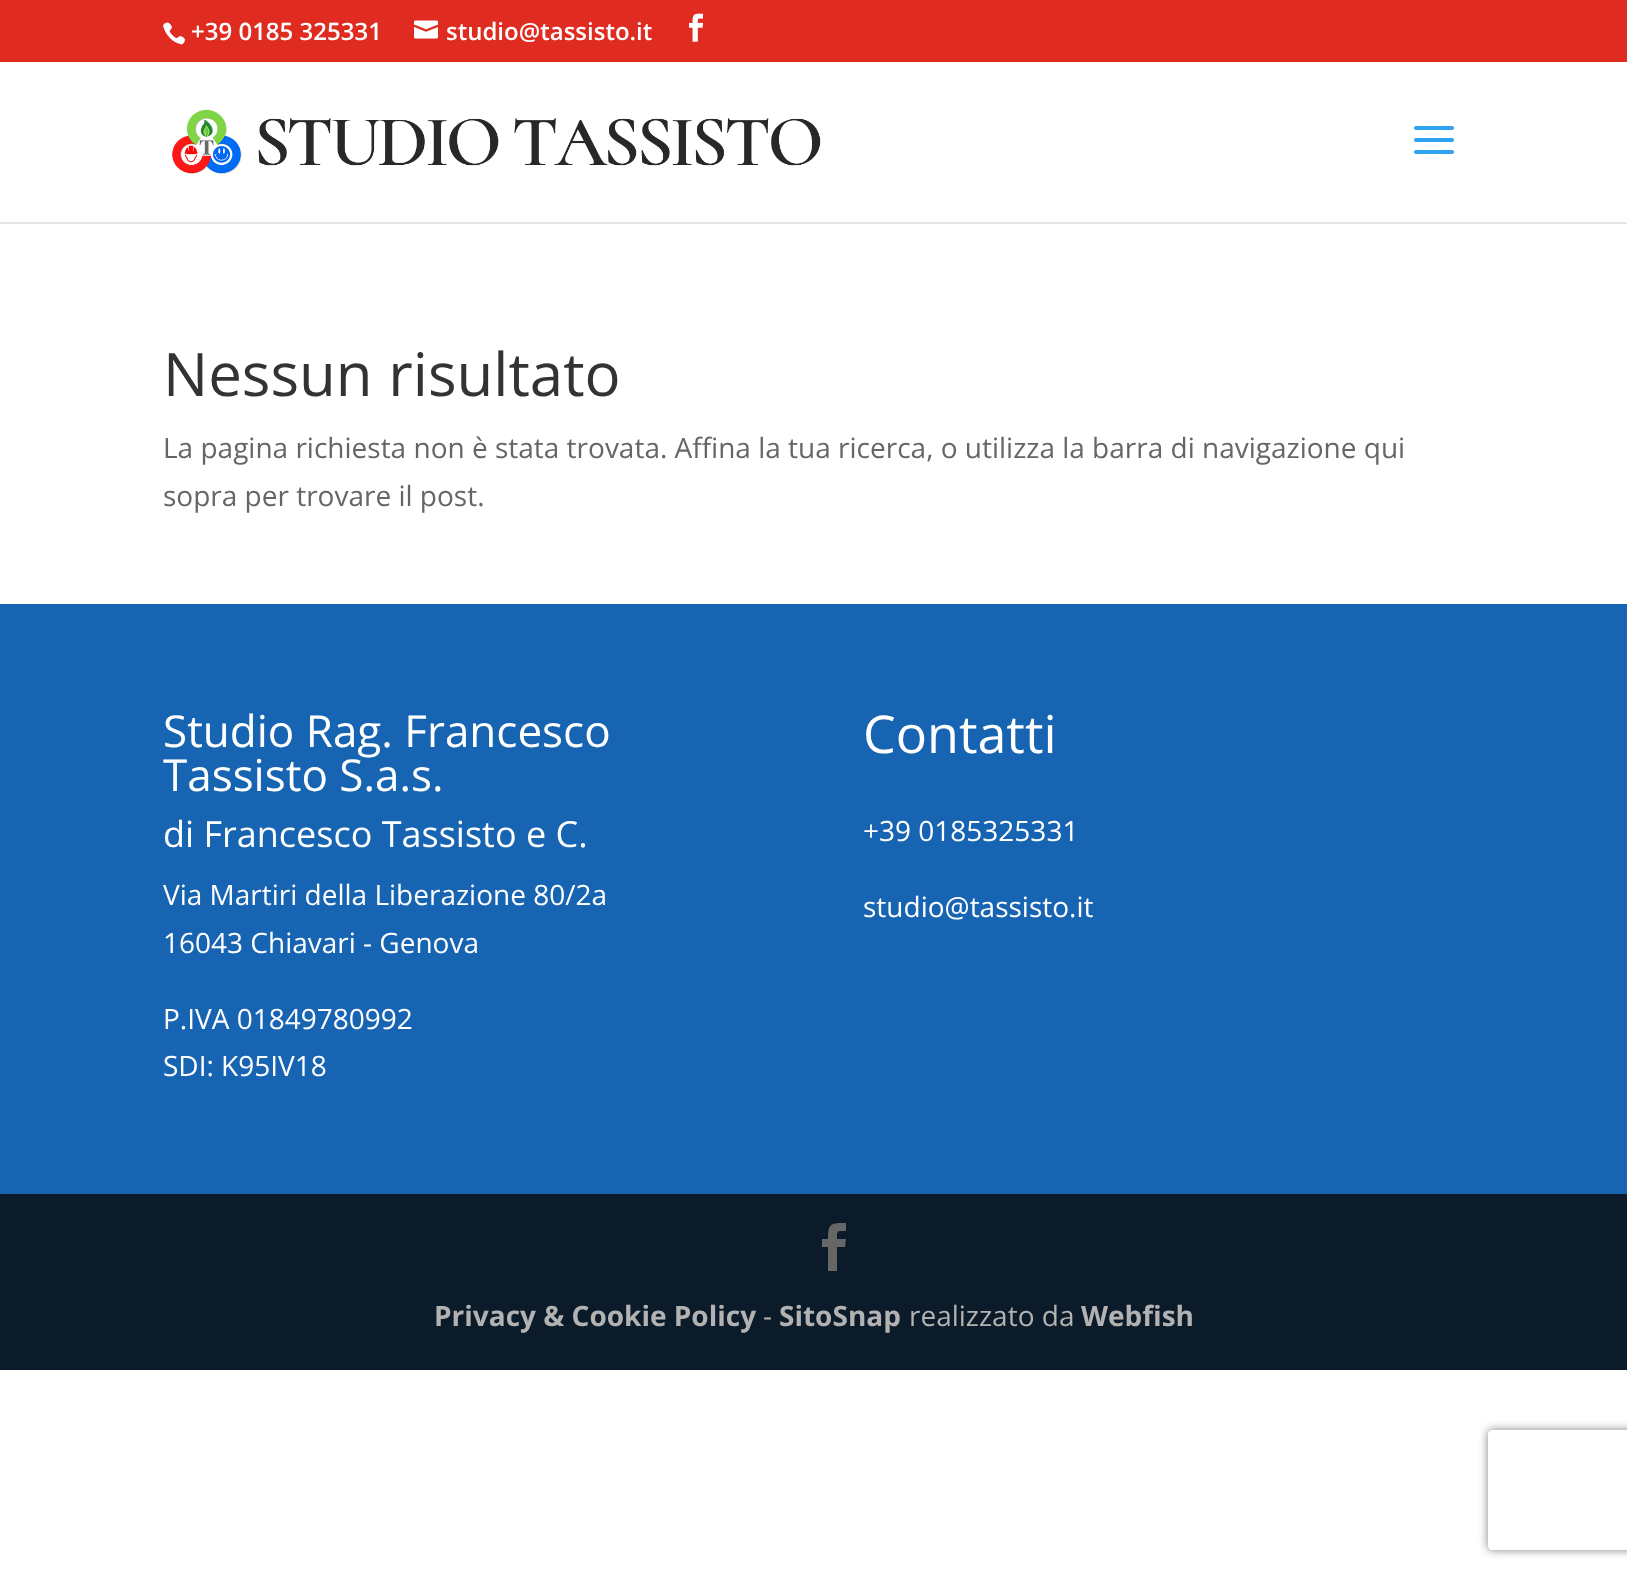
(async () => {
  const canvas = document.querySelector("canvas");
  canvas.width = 1627;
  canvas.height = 1578;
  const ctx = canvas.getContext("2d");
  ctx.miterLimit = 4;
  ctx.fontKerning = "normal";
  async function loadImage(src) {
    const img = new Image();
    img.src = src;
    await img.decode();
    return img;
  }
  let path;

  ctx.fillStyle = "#ffffff";
  ctx.fillRect(0, 0, 1627, 1578);
  ctx.fillStyle = "#e02b20";
  ctx.fillRect(0, 0, 1627, 62);
  ctx.drawImage(await loadImage("img/1.png"), 163, 22, 22, 23);
  ctx.drawImage(await loadImage("img/2.png"), 414, 20, 24, 19);
  ctx.drawImage(await loadImage("img/3.png"), 689, 13, 15, 29);
  ctx.fillStyle = "#e6e6e6";
  ctx.fillRect(0, 222, 1627, 2);
  ctx.drawImage(await loadImage("img/4.png"), 172, 109, 649, 65);
  ctx.drawImage(await loadImage("img/5.png"), 1414, 126, 40, 28);
  ctx.fillStyle = "#1764b2";
  ctx.fillRect(0, 604, 1627, 590);
  ctx.fillStyle = "#0c1b2a";
  ctx.fillRect(0, 1194, 1627, 176);
  ctx.fillStyle = "#666666";
  path = new Path2D("M828 1271H837V1247H845L846 1239H837C837 1230 837 1231 846 1231V1223C831 1223 828 1223 828 1239H822V1247H828Z");
  ctx.fill(path);
  ctx.save();
  path = new Path2D("M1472 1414H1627V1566H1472ZM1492 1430H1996C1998 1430 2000 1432 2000 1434V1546C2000 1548 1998 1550 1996 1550H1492C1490 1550 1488 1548 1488 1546V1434C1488 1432 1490 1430 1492 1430Z");
  ctx.clip(path, "evenodd");
  ctx.fillStyle = "#808080";
  ctx.filter = "blur(5px)";
  ctx.beginPath();
  ctx.roundRect(1488, 1430, 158, 120, 4);
  ctx.fill();
  ctx.filter = "none";
  ctx.restore();
  ctx.font = "600 24px Open Sans";
  ctx.fillStyle = "#ffffff";
  ctx.fillText("+39 0185 325331", 191, 40);
  ctx.fillText("studio@tassisto.it", 446, 40);
  ctx.font = "60px Open Sans";
  ctx.fillStyle = "#333333";
  ctx.fillText("Nessun risultato", 163, 396);
  ctx.font = "28px Open Sans";
  ctx.fillStyle = "#666666";
  ctx.fillText("La pagina richiesta non è stata trovata. Affina la tua ricerca, o utilizza la barra di navigazione qui", 163, 458);
  ctx.fillText("sopra per trovare il post.", 163, 506);
  ctx.font = "44px Open Sans";
  ctx.fillStyle = "#ffffff";
  ctx.fillText("Studio Rag. Francesco", 163, 747);
  ctx.fillText("Tassisto S.a.s.", 163, 791);
  ctx.font = "36px Open Sans";
  ctx.fillText("di Francesco Tassisto e C.", 163, 847);
  ctx.font = "28px Open Sans";
  for (const [text, x, y] of [
    ["Via Martiri della Liberazione 80/2a", 163, 905],
    ["16043 Chiavari - Genova", 163, 953],
    ["P.IVA 01849780992", 163, 1029],
    ["SDI: K95IV18", 163, 1076],
  ]) {
    ctx.fillText(text, x, y);
  }
  ctx.font = "52px Open Sans";
  ctx.fillText("Contatti", 863, 753);
  ctx.font = "28px Open Sans";
  ctx.fillText("+39 0185325331", 863, 841);
  ctx.fillText("studio@tassisto.it", 863, 917);
  ctx.font = "bold 28px Open Sans";
  ctx.fillStyle = "#b2b2b2";
  ctx.fillText("Privacy & Cookie Policy", 434, 1326);
  ctx.font = "28px Open Sans";
  ctx.fillText("-", 763, 1326);
  ctx.font = "bold 28px Open Sans";
  ctx.fillText("SitoSnap", 779, 1326);
  ctx.font = "28px Open Sans";
  ctx.fillText("realizzato da", 909, 1326);
  ctx.font = "bold 28px Open Sans";
  ctx.fillText("Webfish", 1081, 1326);
})();
